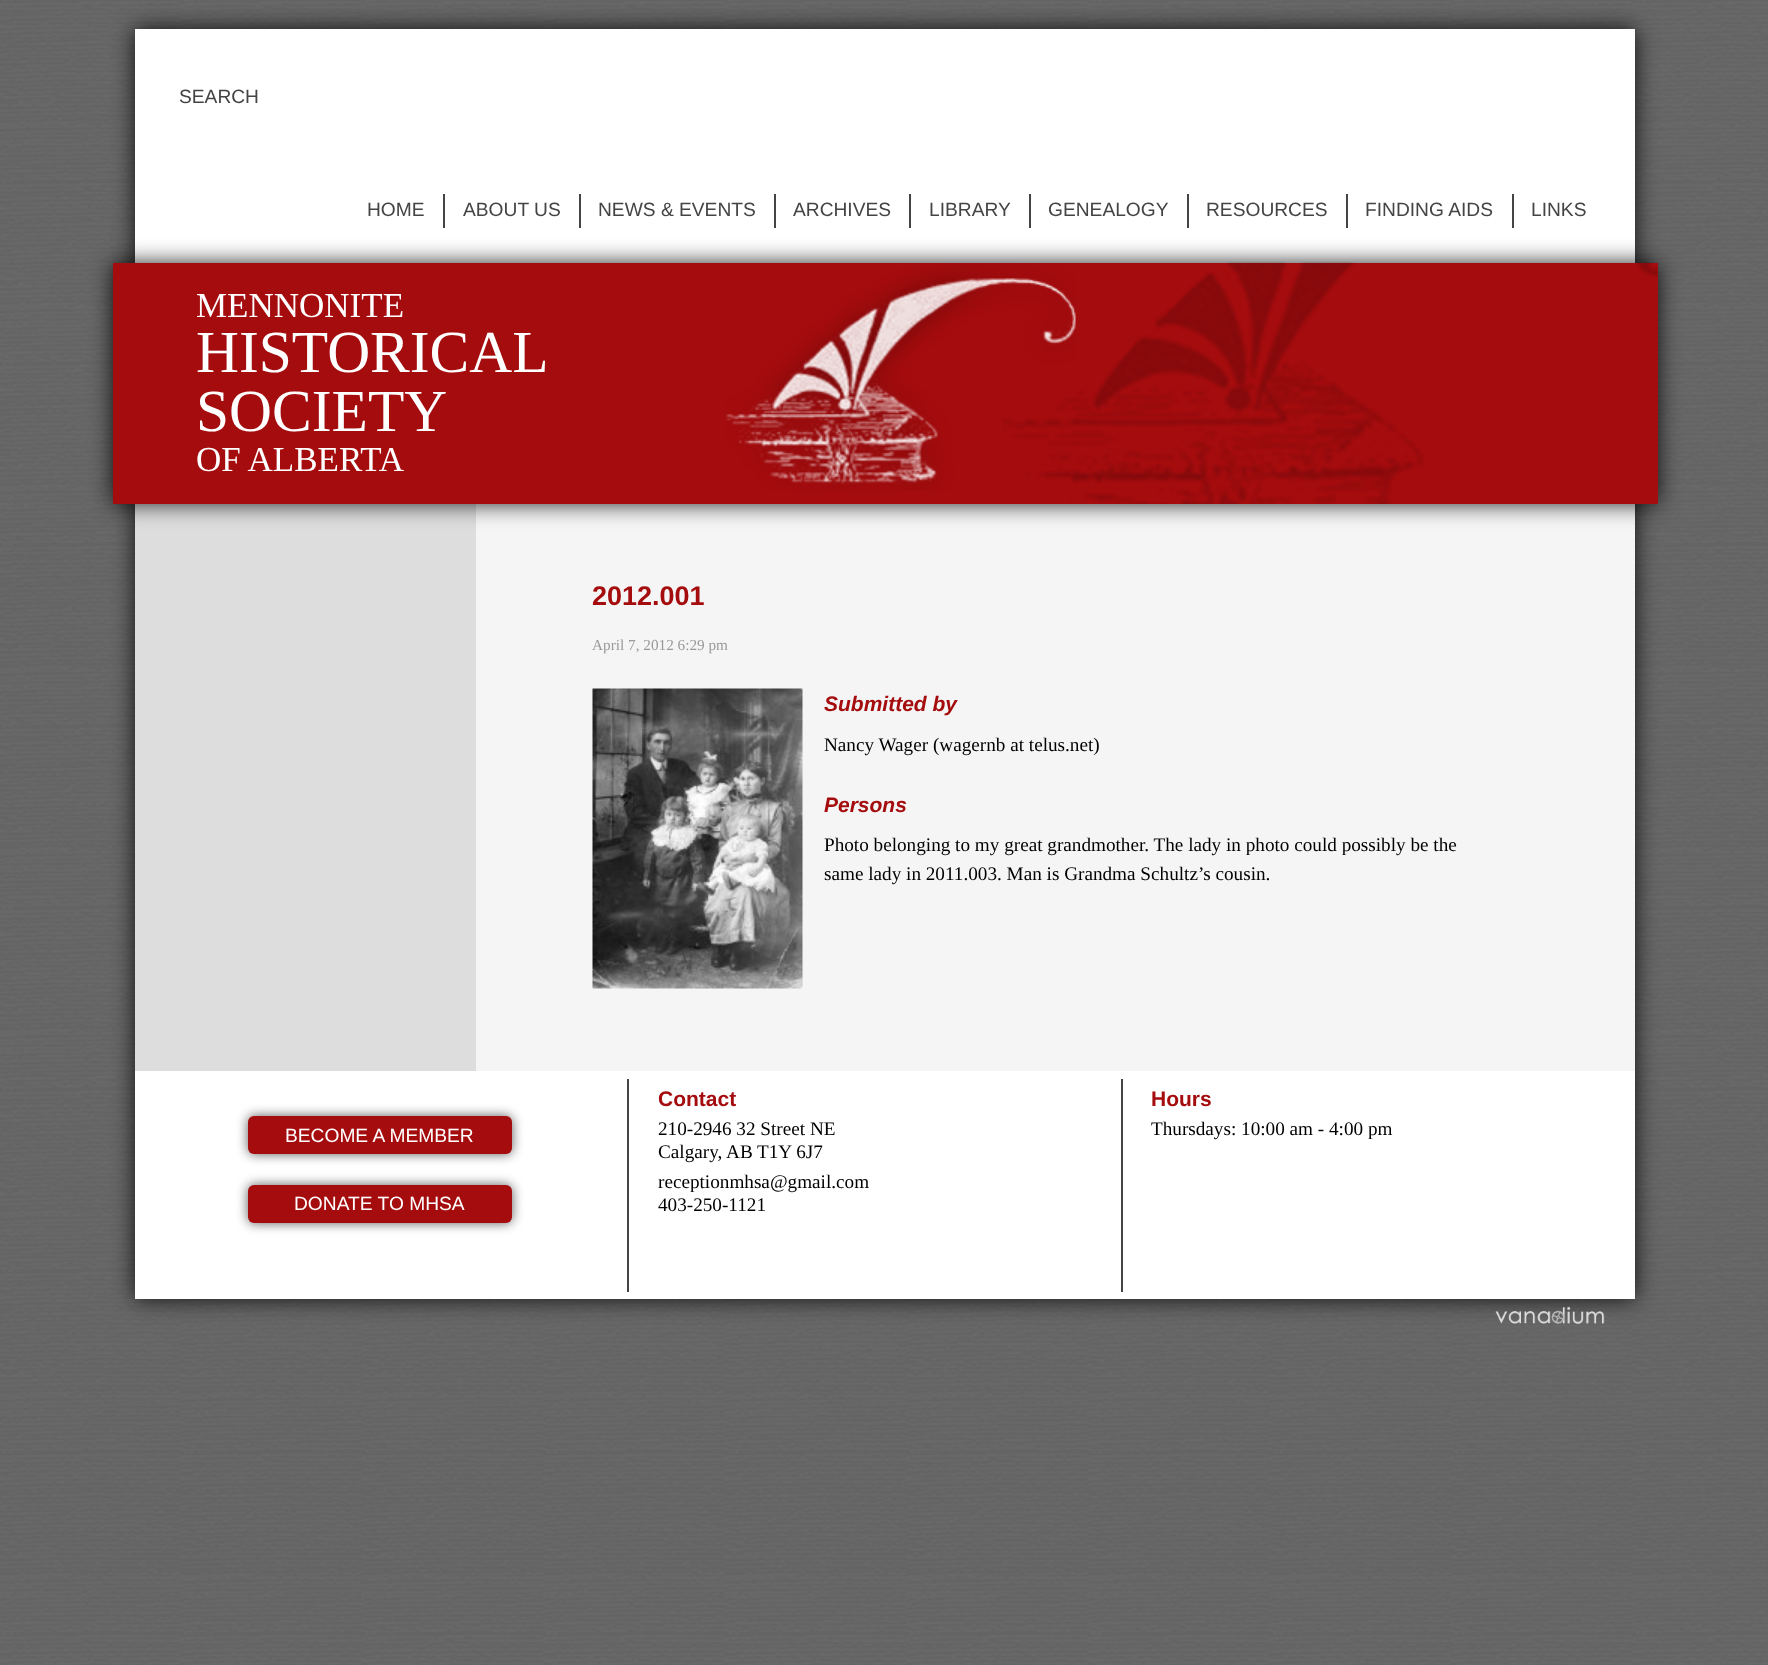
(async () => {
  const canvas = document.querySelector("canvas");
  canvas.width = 1768;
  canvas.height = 1665;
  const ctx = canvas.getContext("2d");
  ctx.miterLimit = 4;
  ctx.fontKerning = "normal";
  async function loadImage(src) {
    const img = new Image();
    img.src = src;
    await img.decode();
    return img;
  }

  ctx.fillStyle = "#ffffff";
  ctx.fillRect(0, 0, 1768, 1665);
  ctx.drawImage(await loadImage("img/1.png"), 0, 0, 1768, 1665);
  ctx.fillStyle = "rgba(0, 0, 0, 0.85)";
  ctx.filter = "blur(11px)";
  ctx.beginPath();
  ctx.rect(135, 29, 1500, 1270);
  ctx.fill();
  ctx.filter = "none";
  for (const [x, y, w, h, color] of [
    [135, 29, 1500, 1270, "#ffffff"],
    [443, 194, 2, 34, "#444444"],
    [579, 194, 2, 34, "#444444"],
    [774, 194, 2, 34, "#444444"],
    [909, 194, 2, 34, "#444444"],
    [1029, 194, 2, 34, "#444444"],
    [1187, 194, 2, 34, "#444444"],
    [1346, 194, 2, 34, "#444444"],
    [1512, 194, 2, 34, "#444444"],
    [476, 504, 1159, 567, "#f5f5f5"],
    [135, 504, 341, 567, "#dddddd"],
  ]) {
    ctx.fillStyle = color;
    ctx.fillRect(x, y, w, h);
  }
  ctx.fillStyle = "rgba(0, 0, 0, 0.85)";
  ctx.filter = "blur(11px)";
  ctx.beginPath();
  ctx.rect(113, 263, 1545, 241);
  ctx.fill();
  ctx.filter = "none";
  ctx.fillStyle = "#a50c0e";
  ctx.fillRect(113, 263, 1545, 241);
  ctx.drawImage(await loadImage("img/2.png"), 1002, 262, 656, 242);
  ctx.drawImage(await loadImage("img/3.png"), 726, 263, 350, 228);
  ctx.drawImage(await loadImage("img/4.png"), 592, 688, 211, 301);
  ctx.fillStyle = "#444444";
  ctx.fillRect(1121, 1079, 2, 213);
  ctx.fillRect(627, 1079, 2, 213);
  ctx.fillStyle = "rgba(0, 0, 0, 0.65)";
  ctx.filter = "blur(6px)";
  ctx.beginPath();
  ctx.roundRect(248, 1116, 264, 38, 6);
  ctx.fill();
  ctx.filter = "none";
  ctx.fillStyle = "#a50c0e";
  ctx.beginPath();
  ctx.roundRect(248, 1116, 264, 38, 6);
  ctx.fill();
  ctx.fillStyle = "rgba(0, 0, 0, 0.65)";
  ctx.filter = "blur(6px)";
  ctx.beginPath();
  ctx.roundRect(248, 1185, 264, 38, 6);
  ctx.fill();
  ctx.filter = "none";
  ctx.fillStyle = "#a50c0e";
  ctx.beginPath();
  ctx.roundRect(248, 1185, 264, 38, 6);
  ctx.fill();
  ctx.drawImage(await loadImage("img/5.png"), 1495, 1306, 110, 18);
  ctx.font = "19.2px Liberation Sans";
  ctx.fillStyle = "#444444";
  for (const [text, x, y] of [
    ["SEARCH", 179, 103],
    ["HOME", 367, 216],
    ["ABOUT US", 463, 216],
    ["NEWS & EVENTS", 598, 216],
    ["ARCHIVES", 793, 216],
    ["LIBRARY", 929, 216],
    ["GENEALOGY", 1048, 216],
    ["RESOURCES", 1206, 216],
    ["FINDING AIDS", 1365, 216],
    ["LINKS", 1531, 216],
  ]) {
    ctx.fillText(text, x, y);
  }
  ctx.font = "35px Liberation Serif";
  ctx.fillStyle = "#ffffff";
  ctx.fillText("MENNONITE", 196, 317);
  ctx.font = "59.5px Liberation Serif";
  ctx.fillText("HISTORICAL", 196, 372);
  ctx.fillText("SOCIETY", 196, 431);
  ctx.font = "35px Liberation Serif";
  ctx.fillText("OF ALBERTA", 196, 471);
  ctx.font = "bold 27px Liberation Sans";
  ctx.fillStyle = "#a50c0e";
  ctx.fillText("2012.001", 592, 605);
  ctx.font = "15.25px Liberation Serif";
  ctx.fillStyle = "#999999";
  ctx.fillText("April 7, 2012 6:29 pm", 592, 650);
  ctx.font = "italic bold 21px Liberation Sans";
  ctx.fillStyle = "#a50c0e";
  ctx.fillText("Submitted by", 824, 711);
  ctx.font = "19.2px Liberation Serif";
  ctx.fillStyle = "#000000";
  ctx.fillText("Nancy Wager (wagernb at telus.net)", 824, 751);
  ctx.font = "italic bold 21px Liberation Sans";
  ctx.fillStyle = "#a50c0e";
  ctx.fillText("Persons", 824, 812);
  ctx.font = "19.2px Liberation Serif";
  ctx.fillStyle = "#000000";
  ctx.fillText("Photo belonging to my great grandmother. The lady in photo could possibly be the", 824, 851);
  ctx.fillText("same lady in 2011.003. Man is Grandma Schultz’s cousin.", 824, 880);
  ctx.font = "bold 21px Liberation Sans";
  ctx.fillStyle = "#a50c0e";
  ctx.fillText("Contact", 658, 1106);
  ctx.font = "19.2px Liberation Serif";
  ctx.fillStyle = "#000000";
  for (const [text, x, y] of [
    ["210-2946 32 Street NE", 658, 1135],
    ["Calgary, AB", 658, 1158],
    ["T1Y 6J7", 757, 1158],
    ["receptionmhsa@gmail.com", 658, 1188],
    ["403-250-1121", 658, 1211],
  ]) {
    ctx.fillText(text, x, y);
  }
  ctx.font = "bold 21px Liberation Sans";
  ctx.fillStyle = "#a50c0e";
  ctx.fillText("Hours", 1151, 1106);
  ctx.font = "19.2px Liberation Serif";
  ctx.fillStyle = "#000000";
  ctx.fillText("Thursdays: 10:00 am - 4:00 pm", 1151, 1135);
  ctx.font = "19.2px Liberation Sans";
  ctx.fillStyle = "#ffffff";
  ctx.fillText("BECOME A MEMBER", 285, 1142);
  ctx.fillText("DONATE TO MHSA", 294, 1210);
})();
